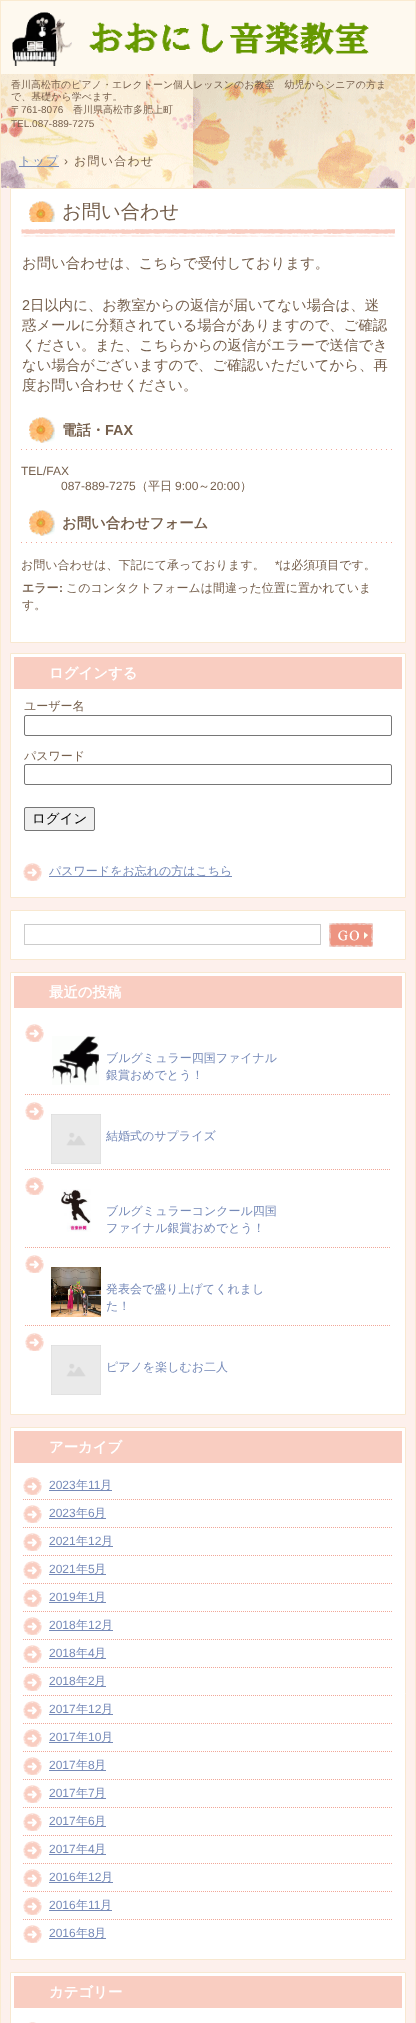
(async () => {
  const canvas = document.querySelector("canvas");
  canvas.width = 416;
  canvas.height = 2023;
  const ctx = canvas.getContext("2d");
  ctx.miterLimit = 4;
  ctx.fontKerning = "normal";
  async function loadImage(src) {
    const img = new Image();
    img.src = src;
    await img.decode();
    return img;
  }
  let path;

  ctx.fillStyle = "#ffffff";
  ctx.fillRect(0, 0, 416, 2023);
  ctx.drawImage(await loadImage("img/1.png"), 1, 74, 414, 114);
  for (const [x, y, w, h, color] of [
    [0, 0, 416, 1, "#faebd1"],
    [415, 0, 1, 2023, "#faebd1"],
    [0, 0, 1, 2023, "#faebd1"],
    [1, 1, 414, 73, "#fef9ef"],
  ]) {
    ctx.fillStyle = color;
    ctx.fillRect(x, y, w, h);
  }
  ctx.drawImage(await loadImage("img/2.png"), 12, 12, 357, 54);
  ctx.fillStyle = "#768ab8";
  ctx.fillRect(19, 166, 40, 1);
  ctx.fillStyle = "#fdf0ec";
  ctx.fillRect(1, 188, 414, 1835);
  ctx.fillStyle = "#ffffff";
  ctx.beginPath();
  ctx.rect(10.5, 188.5, 395, 454);
  ctx.fill();
  ctx.strokeStyle = "#f8e8d0";
  ctx.stroke();
  ctx.drawImage(await loadImage("img/3.png"), 21, 229, 374, 8);
  ctx.drawImage(await loadImage("img/4.png"), 29, 201, 26, 21);
  ctx.drawImage(await loadImage("img/5.png"), 21, 417, 371, 33);
  ctx.drawImage(await loadImage("img/5.png"), 21, 510, 371, 33);
  ctx.beginPath();
  ctx.rect(10.5, 653.5, 395, 244);
  ctx.fill();
  ctx.stroke();
  ctx.fillStyle = "#f9cdc1";
  ctx.fillRect(14, 657, 388, 32);
  ctx.beginPath();
  ctx.roundRect(24.5, 715.5, 367, 20, 1.5);
  ctx.strokeStyle = "#767676";
  ctx.stroke();
  ctx.beginPath();
  ctx.roundRect(24.5, 764.5, 367, 20, 1.5);
  ctx.stroke();
  ctx.fillStyle = "#efefef";
  ctx.beginPath();
  ctx.roundRect(24.5, 807.5, 70, 23, 1.5);
  ctx.fill();
  ctx.stroke();
  ctx.drawImage(await loadImage("img/6.png"), 23, 863, 19, 18);
  ctx.fillStyle = "#768ab8";
  ctx.fillRect(49, 876, 183, 1);
  ctx.fillStyle = "#ffffff";
  ctx.beginPath();
  ctx.rect(10.5, 910.5, 395, 49);
  ctx.fill();
  ctx.strokeStyle = "#f8e8d0";
  ctx.stroke();
  ctx.strokeStyle = "#cccccc";
  ctx.strokeRect(24.5, 924.5, 296, 20);
  ctx.fillStyle = "#efefef";
  ctx.fillRect(329, 923, 44, 24);
  ctx.drawImage(await loadImage("img/7.png"), 329, 923, 44, 24);
  ctx.fillStyle = "#ffffff";
  ctx.beginPath();
  ctx.rect(10.5, 972.5, 395, 442);
  ctx.fill();
  ctx.strokeStyle = "#f8e8d0";
  ctx.stroke();
  ctx.fillStyle = "#f9cdc1";
  ctx.fillRect(14, 976, 388, 32);
  ctx.drawImage(await loadImage("img/6.png"), 25, 1024, 19, 18);
  path = new Path2D("M25 1094.5H391");
  ctx.strokeStyle = "#f1a798";
  ctx.setLineDash([1, 1]);
  ctx.stroke(path);
  ctx.drawImage(await loadImage("img/8.png"), 52, 1036, 47, 49);
  ctx.drawImage(await loadImage("img/6.png"), 25, 1102, 19, 18);
  path = new Path2D("M25 1169.5H391");
  ctx.stroke(path);
  ctx.drawImage(await loadImage("img/9.png"), 51, 1114, 50, 50);
  ctx.drawImage(await loadImage("img/6.png"), 25, 1177, 19, 18);
  path = new Path2D("M25 1247.5H391");
  ctx.stroke(path);
  ctx.drawImage(await loadImage("img/10.png"), 61, 1189, 30, 43);
  ctx.drawImage(await loadImage("img/6.png"), 25, 1255, 19, 18);
  path = new Path2D("M25 1325.5H391");
  ctx.stroke(path);
  ctx.drawImage(await loadImage("img/11.png"), 51, 1267, 50, 50);
  ctx.drawImage(await loadImage("img/6.png"), 25, 1333, 19, 18);
  ctx.drawImage(await loadImage("img/9.png"), 51, 1345, 50, 50);
  ctx.fillStyle = "#ffffff";
  ctx.beginPath();
  ctx.rect(10.5, 1427.5, 395, 532);
  ctx.fill();
  ctx.strokeStyle = "#f8e8d0";
  ctx.setLineDash([]);
  ctx.stroke();
  ctx.fillStyle = "#f9cdc1";
  ctx.fillRect(14, 1431, 388, 32);
  ctx.drawImage(await loadImage("img/6.png"), 23, 1477, 19, 18);
  path = new Path2D("M23 1499.5H393");
  ctx.strokeStyle = "#f1a798";
  ctx.setLineDash([1, 1]);
  ctx.stroke(path);
  ctx.fillStyle = "#768ab8";
  ctx.fillRect(49, 1490, 63, 1);
  ctx.drawImage(await loadImage("img/6.png"), 23, 1505, 19, 18);
  path = new Path2D("M23 1527.5H393");
  ctx.stroke(path);
  ctx.fillRect(49, 1518, 57, 1);
  ctx.drawImage(await loadImage("img/6.png"), 23, 1533, 19, 18);
  path = new Path2D("M23 1555.5H393");
  ctx.stroke(path);
  ctx.fillRect(49, 1546, 64, 1);
  ctx.drawImage(await loadImage("img/6.png"), 23, 1561, 19, 18);
  path = new Path2D("M23 1583.5H393");
  ctx.stroke(path);
  ctx.fillRect(49, 1574, 57, 1);
  ctx.drawImage(await loadImage("img/6.png"), 23, 1589, 19, 18);
  path = new Path2D("M23 1611.5H393");
  ctx.stroke(path);
  ctx.fillRect(49, 1602, 57, 1);
  ctx.drawImage(await loadImage("img/6.png"), 23, 1617, 19, 18);
  path = new Path2D("M23 1639.5H393");
  ctx.stroke(path);
  ctx.fillRect(49, 1630, 64, 1);
  ctx.drawImage(await loadImage("img/6.png"), 23, 1645, 19, 18);
  path = new Path2D("M23 1667.5H393");
  ctx.stroke(path);
  ctx.fillRect(49, 1658, 57, 1);
  ctx.drawImage(await loadImage("img/6.png"), 23, 1673, 19, 18);
  path = new Path2D("M23 1695.5H393");
  ctx.stroke(path);
  ctx.fillRect(49, 1686, 57, 1);
  ctx.drawImage(await loadImage("img/6.png"), 23, 1701, 19, 18);
  path = new Path2D("M23 1723.5H393");
  ctx.stroke(path);
  ctx.fillRect(49, 1714, 64, 1);
  ctx.drawImage(await loadImage("img/6.png"), 23, 1729, 19, 18);
  path = new Path2D("M23 1751.5H393");
  ctx.stroke(path);
  ctx.fillRect(49, 1742, 64, 1);
  ctx.drawImage(await loadImage("img/6.png"), 23, 1757, 19, 18);
  path = new Path2D("M23 1779.5H393");
  ctx.stroke(path);
  ctx.fillRect(49, 1770, 57, 1);
  ctx.drawImage(await loadImage("img/6.png"), 23, 1785, 19, 18);
  path = new Path2D("M23 1807.5H393");
  ctx.stroke(path);
  ctx.fillRect(49, 1798, 57, 1);
  ctx.drawImage(await loadImage("img/6.png"), 23, 1813, 19, 18);
  path = new Path2D("M23 1835.5H393");
  ctx.stroke(path);
  ctx.fillRect(49, 1826, 57, 1);
  ctx.drawImage(await loadImage("img/6.png"), 23, 1841, 19, 18);
  path = new Path2D("M23 1863.5H393");
  ctx.stroke(path);
  ctx.fillRect(49, 1854, 57, 1);
  ctx.drawImage(await loadImage("img/6.png"), 23, 1869, 19, 18);
  path = new Path2D("M23 1891.5H393");
  ctx.stroke(path);
  ctx.fillRect(49, 1882, 64, 1);
  ctx.drawImage(await loadImage("img/6.png"), 23, 1897, 19, 18);
  path = new Path2D("M23 1919.5H393");
  ctx.stroke(path);
  ctx.fillRect(49, 1910, 63, 1);
  ctx.drawImage(await loadImage("img/6.png"), 23, 1925, 19, 18);
  ctx.fillRect(49, 1938, 57, 1);
  ctx.fillStyle = "#ffffff";
  ctx.beginPath();
  ctx.rect(10.5, 1972.5, 395, 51);
  ctx.fill();
  ctx.strokeStyle = "#f8e8d0";
  ctx.setLineDash([]);
  ctx.stroke();
  ctx.fillStyle = "#f9cdc1";
  ctx.fillRect(14, 1976, 388, 32);
  ctx.drawImage(await loadImage("img/12.png"), 29, 2022, 7, 1);
  ctx.font = "500 10px WenQuanYi Zen Hei";
  ctx.fillStyle = "#755f4c";
  for (const [text, x, y] of [
    ["香川高松市のピアノ・エレクトーン個人レッスンのお教室　幼児からシニアの方ま", 11, 88],
    ["で、基礎から学べます。", 11, 100],
    ["〒", 11, 113],
  ]) {
    ctx.fillText(text, x, y);
  }
  ctx.font = "10px Liberation Sans";
  ctx.fillText("761-8076", 21, 113);
  ctx.font = "500 10px WenQuanYi Zen Hei";
  ctx.fillText("香川県高松市多肥上町", 73, 113);
  ctx.font = "10px Liberation Sans";
  ctx.fillText("TEL.087-889-7275", 11, 127);
  ctx.letterSpacing = "1.25px";
  ctx.font = "500 12px WenQuanYi Zen Hei";
  ctx.fillStyle = "#768ab8";
  ctx.fillText("トップ", 19, 165);
  ctx.font = "12px Liberation Sans";
  ctx.fillStyle = "#755f4c";
  ctx.fillText("›", 64, 165);
  ctx.font = "500 12px WenQuanYi Zen Hei";
  ctx.fillText("お問い合わせ", 74, 165);
  ctx.letterSpacing = "0px";
  ctx.font = "500 19.25px WenQuanYi Zen Hei";
  ctx.fillText("お問い合わせ", 62, 218);
  ctx.font = "500 14.4px WenQuanYi Zen Hei";
  ctx.fillText("お問い合わせは、こちらで受付しております。", 22, 268);
  ctx.font = "14.4px Liberation Sans";
  ctx.fillText("2", 22, 310);
  ctx.font = "500 14.4px WenQuanYi Zen Hei";
  for (const [text, x, y] of [
    ["日以内に、お教室からの返信が届いてない場合は、迷", 30, 310],
    ["惑メールに分類されている場合がありますので、ご確認", 22, 330],
    ["ください。また、こちらからの返信がエラーで送信でき", 22, 350],
    ["ない場合がございますので、ご確認いただいてから、再", 22, 370],
    ["度お問い合わせください。", 22, 390],
  ]) {
    ctx.fillText(text, x, y);
  }
  ctx.font = "bold 14.4px WenQuanYi Zen Hei";
  ctx.fillText("電話・", 62, 435);
  ctx.font = "bold 14.4px Liberation Sans";
  ctx.fillText("FAX", 105, 435);
  ctx.font = "12px Liberation Sans";
  ctx.fillText("TEL/FAX", 21, 475);
  ctx.fillText("087-889-7275", 61, 490);
  ctx.font = "500 12px WenQuanYi Zen Hei";
  ctx.fillText("（平日", 136, 490);
  ctx.font = "12px Liberation Sans";
  ctx.fillText("9:00", 175, 490);
  ctx.font = "500 12px WenQuanYi Zen Hei";
  ctx.fillText("～", 198, 490);
  ctx.font = "12px Liberation Sans";
  ctx.fillText("20:00", 210, 490);
  ctx.font = "500 12px WenQuanYi Zen Hei";
  ctx.fillText("）", 240, 490);
  ctx.font = "bold 14.4px WenQuanYi Zen Hei";
  ctx.fillText("お問い合わせフォーム", 62, 528);
  ctx.font = "500 12px WenQuanYi Zen Hei";
  ctx.fillText("お問い合わせは、下記にて承っております。", 21, 569);
  ctx.font = "12px Liberation Sans";
  ctx.fillText("*", 275, 569);
  ctx.font = "500 12px WenQuanYi Zen Hei";
  ctx.fillText("は必須項目です。", 279, 569);
  ctx.font = "bold 12px WenQuanYi Zen Hei";
  ctx.fillText("エラー", 22, 592);
  ctx.font = "bold 12px Liberation Sans";
  ctx.fillText(":", 59, 592);
  ctx.font = "500 12px WenQuanYi Zen Hei";
  ctx.fillText("このコンタクトフォームは間違った位置に置かれていま", 66, 592);
  ctx.fillText("す。", 22, 609);
  ctx.font = "bold 14.4px WenQuanYi Zen Hei";
  ctx.fillStyle = "#ffffff";
  ctx.fillText("ログインする", 49, 678);
  ctx.font = "500 12px WenQuanYi Zen Hei";
  ctx.fillStyle = "#755f4c";
  ctx.fillText("ユーザー名", 24, 710);
  ctx.fillText("パスワード", 24, 760);
  ctx.font = "500 13.5px WenQuanYi Zen Hei";
  ctx.fillStyle = "#000000";
  ctx.fillText("ログイン", 32, 823);
  ctx.font = "500 12px WenQuanYi Zen Hei";
  ctx.fillStyle = "#768ab8";
  ctx.fillText("パスワードをお忘れの方はこちら", 49, 875);
  ctx.font = "bold 14.4px WenQuanYi Zen Hei";
  ctx.fillStyle = "#ffffff";
  ctx.fillText("最近の投稿", 49, 997);
  ctx.font = "500 12px WenQuanYi Zen Hei";
  ctx.fillStyle = "#768ab8";
  for (const [text, x, y] of [
    ["ブルグミュラー四国ファイナル", 106, 1062],
    ["銀賞おめでとう！", 106, 1079],
    ["結婚式のサプライズ", 106, 1140],
    ["ブルグミュラーコンクール四国", 106, 1215],
    ["ファイナル銀賞おめでとう！", 106, 1232],
    ["発表会で盛り上げてくれまし", 106, 1293],
    ["た！", 106, 1310],
    ["ピアノを楽しむお二人", 106, 1371],
  ]) {
    ctx.fillText(text, x, y);
  }
  ctx.font = "bold 14.4px WenQuanYi Zen Hei";
  ctx.fillStyle = "#ffffff";
  ctx.fillText("アーカイブ", 49, 1452);
  ctx.font = "12px Liberation Sans";
  ctx.fillStyle = "#768ab8";
  ctx.fillText("2023", 49, 1489);
  ctx.font = "500 12px WenQuanYi Zen Hei";
  ctx.fillText("年", 76, 1489);
  ctx.font = "12px Liberation Sans";
  ctx.fillText("11", 88, 1489);
  ctx.font = "500 12px WenQuanYi Zen Hei";
  ctx.fillText("月", 100, 1489);
  ctx.font = "12px Liberation Sans";
  ctx.fillText("2023", 49, 1517);
  ctx.font = "500 12px WenQuanYi Zen Hei";
  ctx.fillText("年", 76, 1517);
  ctx.font = "12px Liberation Sans";
  ctx.fillText("6", 88, 1517);
  ctx.font = "500 12px WenQuanYi Zen Hei";
  ctx.fillText("月", 94, 1517);
  ctx.font = "12px Liberation Sans";
  ctx.fillText("2021", 49, 1545);
  ctx.font = "500 12px WenQuanYi Zen Hei";
  ctx.fillText("年", 76, 1545);
  ctx.font = "12px Liberation Sans";
  ctx.fillText("12", 88, 1545);
  ctx.font = "500 12px WenQuanYi Zen Hei";
  ctx.fillText("月", 101, 1545);
  ctx.font = "12px Liberation Sans";
  ctx.fillText("2021", 49, 1573);
  ctx.font = "500 12px WenQuanYi Zen Hei";
  ctx.fillText("年", 76, 1573);
  ctx.font = "12px Liberation Sans";
  ctx.fillText("5", 88, 1573);
  ctx.font = "500 12px WenQuanYi Zen Hei";
  ctx.fillText("月", 94, 1573);
  ctx.font = "12px Liberation Sans";
  ctx.fillText("2019", 49, 1601);
  ctx.font = "500 12px WenQuanYi Zen Hei";
  ctx.fillText("年", 76, 1601);
  ctx.font = "12px Liberation Sans";
  ctx.fillText("1", 88, 1601);
  ctx.font = "500 12px WenQuanYi Zen Hei";
  ctx.fillText("月", 94, 1601);
  ctx.font = "12px Liberation Sans";
  ctx.fillText("2018", 49, 1629);
  ctx.font = "500 12px WenQuanYi Zen Hei";
  ctx.fillText("年", 76, 1629);
  ctx.font = "12px Liberation Sans";
  ctx.fillText("12", 88, 1629);
  ctx.font = "500 12px WenQuanYi Zen Hei";
  ctx.fillText("月", 101, 1629);
  ctx.font = "12px Liberation Sans";
  ctx.fillText("2018", 49, 1657);
  ctx.font = "500 12px WenQuanYi Zen Hei";
  ctx.fillText("年", 76, 1657);
  ctx.font = "12px Liberation Sans";
  ctx.fillText("4", 88, 1657);
  ctx.font = "500 12px WenQuanYi Zen Hei";
  ctx.fillText("月", 94, 1657);
  ctx.font = "12px Liberation Sans";
  ctx.fillText("2018", 49, 1685);
  ctx.font = "500 12px WenQuanYi Zen Hei";
  ctx.fillText("年", 76, 1685);
  ctx.font = "12px Liberation Sans";
  ctx.fillText("2", 88, 1685);
  ctx.font = "500 12px WenQuanYi Zen Hei";
  ctx.fillText("月", 94, 1685);
  ctx.font = "12px Liberation Sans";
  ctx.fillText("2017", 49, 1713);
  ctx.font = "500 12px WenQuanYi Zen Hei";
  ctx.fillText("年", 76, 1713);
  ctx.font = "12px Liberation Sans";
  ctx.fillText("12", 88, 1713);
  ctx.font = "500 12px WenQuanYi Zen Hei";
  ctx.fillText("月", 101, 1713);
  ctx.font = "12px Liberation Sans";
  ctx.fillText("2017", 49, 1741);
  ctx.font = "500 12px WenQuanYi Zen Hei";
  ctx.fillText("年", 76, 1741);
  ctx.font = "12px Liberation Sans";
  ctx.fillText("10", 88, 1741);
  ctx.font = "500 12px WenQuanYi Zen Hei";
  ctx.fillText("月", 101, 1741);
  ctx.font = "12px Liberation Sans";
  ctx.fillText("2017", 49, 1769);
  ctx.font = "500 12px WenQuanYi Zen Hei";
  ctx.fillText("年", 76, 1769);
  ctx.font = "12px Liberation Sans";
  ctx.fillText("8", 88, 1769);
  ctx.font = "500 12px WenQuanYi Zen Hei";
  ctx.fillText("月", 94, 1769);
  ctx.font = "12px Liberation Sans";
  ctx.fillText("2017", 49, 1797);
  ctx.font = "500 12px WenQuanYi Zen Hei";
  ctx.fillText("年", 76, 1797);
  ctx.font = "12px Liberation Sans";
  ctx.fillText("7", 88, 1797);
  ctx.font = "500 12px WenQuanYi Zen Hei";
  ctx.fillText("月", 94, 1797);
  ctx.font = "12px Liberation Sans";
  ctx.fillText("2017", 49, 1825);
  ctx.font = "500 12px WenQuanYi Zen Hei";
  ctx.fillText("年", 76, 1825);
  ctx.font = "12px Liberation Sans";
  ctx.fillText("6", 88, 1825);
  ctx.font = "500 12px WenQuanYi Zen Hei";
  ctx.fillText("月", 94, 1825);
  ctx.font = "12px Liberation Sans";
  ctx.fillText("2017", 49, 1853);
  ctx.font = "500 12px WenQuanYi Zen Hei";
  ctx.fillText("年", 76, 1853);
  ctx.font = "12px Liberation Sans";
  ctx.fillText("4", 88, 1853);
  ctx.font = "500 12px WenQuanYi Zen Hei";
  ctx.fillText("月", 94, 1853);
  ctx.font = "12px Liberation Sans";
  ctx.fillText("2016", 49, 1881);
  ctx.font = "500 12px WenQuanYi Zen Hei";
  ctx.fillText("年", 76, 1881);
  ctx.font = "12px Liberation Sans";
  ctx.fillText("12", 88, 1881);
  ctx.font = "500 12px WenQuanYi Zen Hei";
  ctx.fillText("月", 101, 1881);
  ctx.font = "12px Liberation Sans";
  ctx.fillText("2016", 49, 1909);
  ctx.font = "500 12px WenQuanYi Zen Hei";
  ctx.fillText("年", 76, 1909);
  ctx.font = "12px Liberation Sans";
  ctx.fillText("11", 88, 1909);
  ctx.font = "500 12px WenQuanYi Zen Hei";
  ctx.fillText("月", 100, 1909);
  ctx.font = "12px Liberation Sans";
  ctx.fillText("2016", 49, 1937);
  ctx.font = "500 12px WenQuanYi Zen Hei";
  ctx.fillText("年", 76, 1937);
  ctx.font = "12px Liberation Sans";
  ctx.fillText("8", 88, 1937);
  ctx.font = "500 12px WenQuanYi Zen Hei";
  ctx.fillText("月", 94, 1937);
  ctx.font = "bold 14.4px WenQuanYi Zen Hei";
  ctx.fillStyle = "#ffffff";
  ctx.fillText("カテゴリー", 49, 1997);
})();
